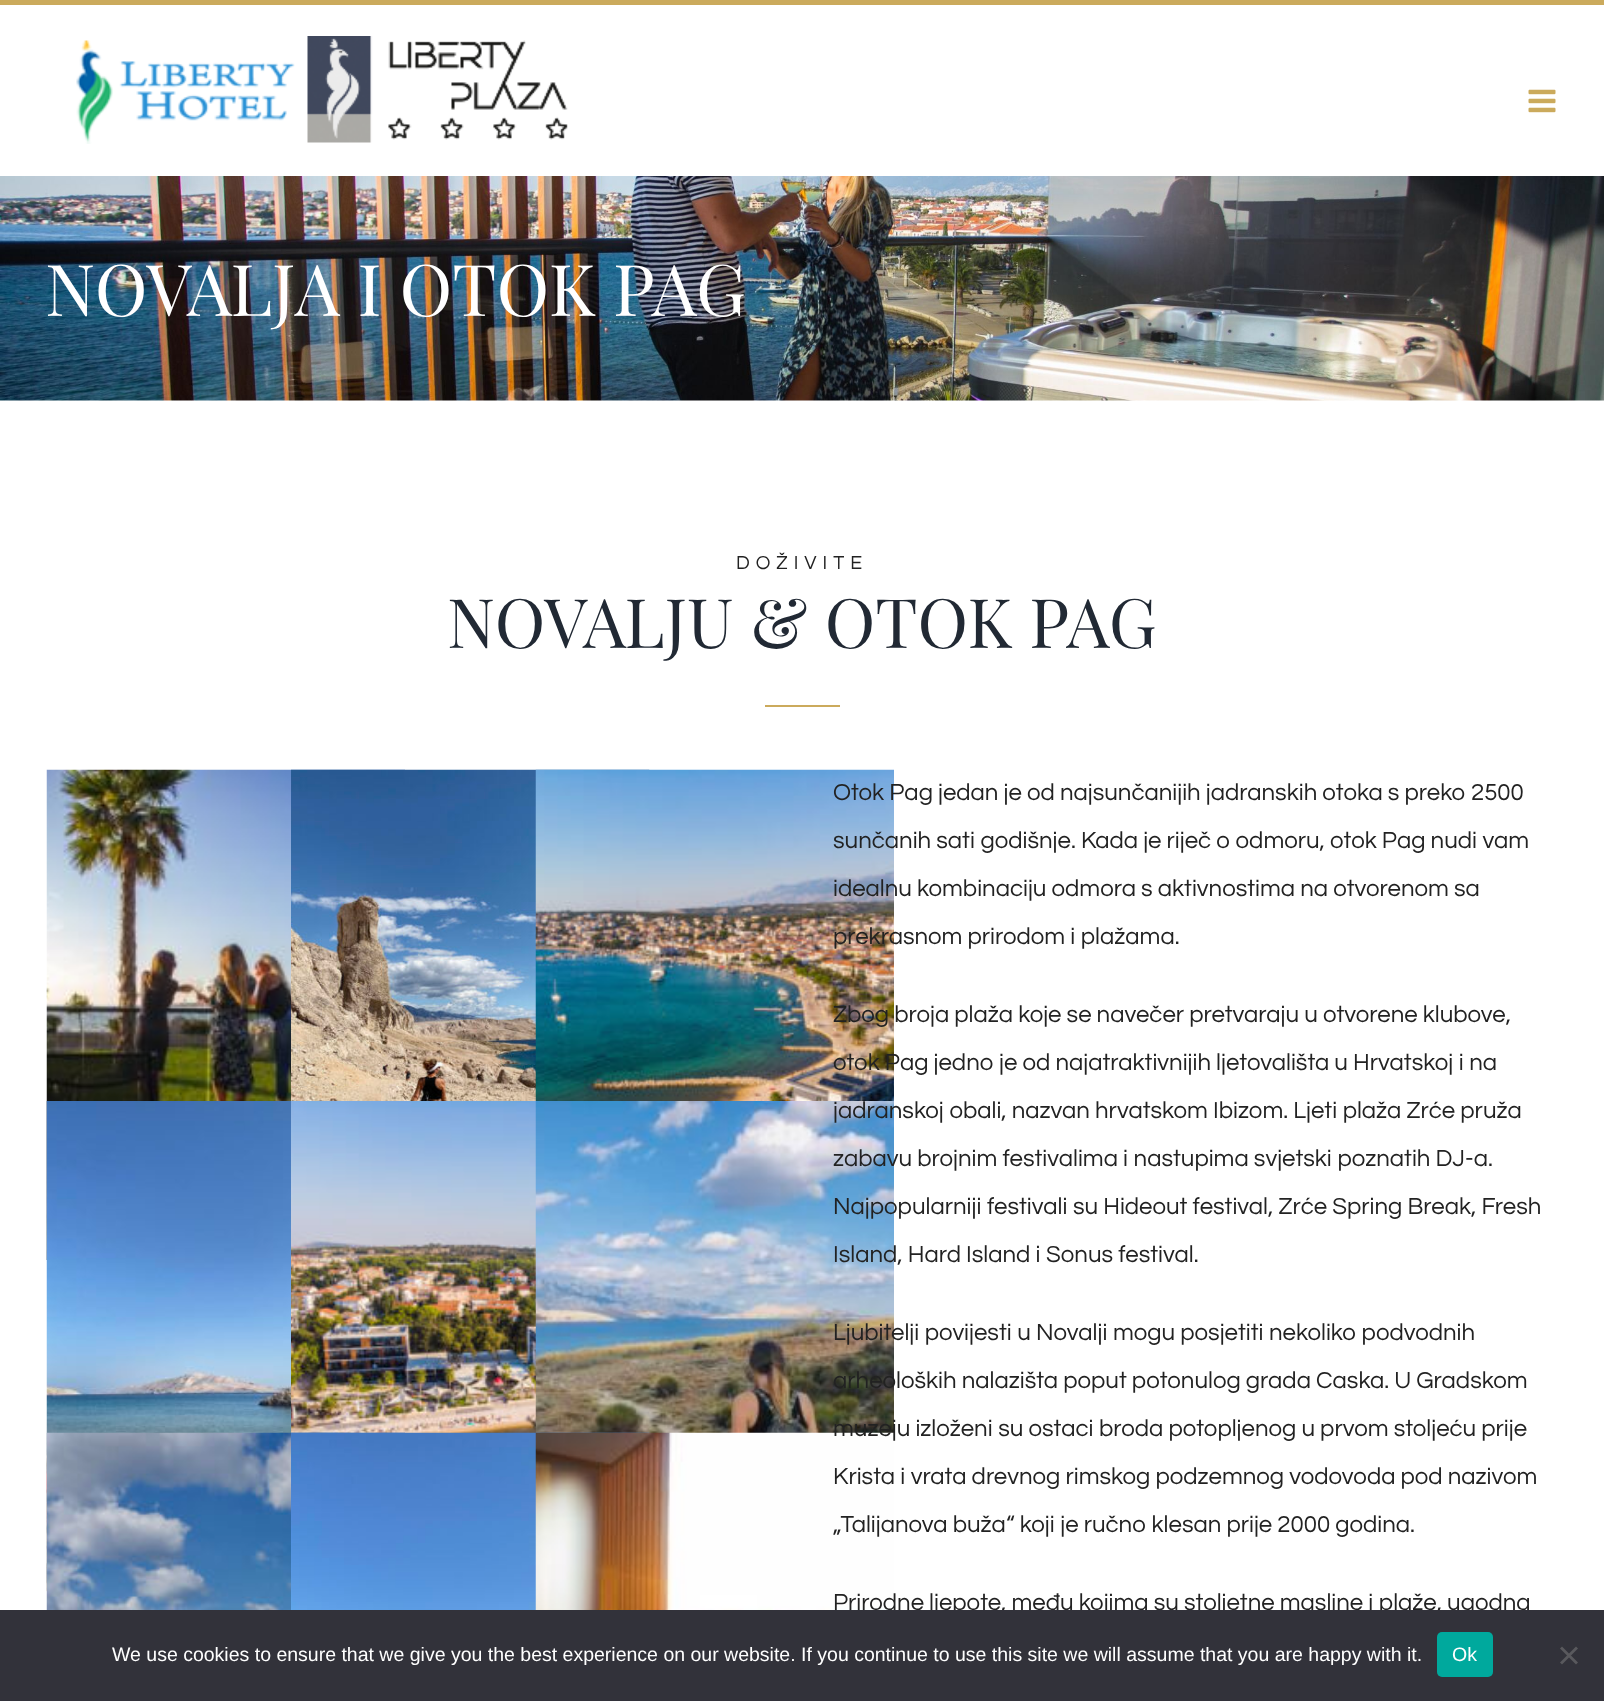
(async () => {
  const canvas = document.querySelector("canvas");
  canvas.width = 1604;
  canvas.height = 1701;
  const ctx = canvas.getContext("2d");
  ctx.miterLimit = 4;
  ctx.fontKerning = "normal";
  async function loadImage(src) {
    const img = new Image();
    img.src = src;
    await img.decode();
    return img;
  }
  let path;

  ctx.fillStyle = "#ffffff";
  ctx.fillRect(0, 0, 1604, 1701);
  ctx.fillStyle = "#cbaa5c";
  ctx.fillRect(0, 0, 1604, 5);
  ctx.drawImage(await loadImage("img/1.png"), 76, 36, 492, 108);
  ctx.drawImage(await loadImage("img/2.png"), 1528, 89, 28, 24);
  ctx.drawImage(await loadImage("img/3.png"), 0, 176, 1604, 225);
  ctx.fillRect(765, 705, 75, 2);
  ctx.drawImage(await loadImage("img/4.png"), 46, 769, 359, 491);
  ctx.drawImage(await loadImage("img/5.png"), 291, 769, 359, 332);
  ctx.drawImage(await loadImage("img/6.png"), 535, 769, 359, 332);
  ctx.drawImage(await loadImage("img/7.png"), 46, 1101, 245, 491);
  ctx.drawImage(await loadImage("img/8.png"), 291, 1101, 245, 332);
  ctx.drawImage(await loadImage("img/9.png"), 535, 1101, 359, 332);
  ctx.drawImage(await loadImage("img/10.png"), 46, 1432, 359, 178);
  ctx.drawImage(await loadImage("img/11.png"), 291, 1432, 359, 178);
  ctx.drawImage(await loadImage("img/12.png"), 535, 1432, 359, 178);
  ctx.font = "71.25px Playfair Display";
  ctx.fillStyle = "#ffffff";
  ctx.fillText("NOVALJA I OTOK PAG", 45, 316);
  ctx.letterSpacing = "6px";
  ctx.font = "19.5px Questrial";
  ctx.fillStyle = "#222222";
  ctx.fillText("DOŽIVITE", 736, 569);
  ctx.letterSpacing = "0px";
  ctx.font = "68.25px Playfair Display";
  ctx.fillStyle = "#212934";
  ctx.fillText("NOVALJU & OTOK PAG", 447, 648);
  ctx.font = "24px Questrial";
  ctx.fillStyle = "#222222";
  for (const [text, x, y] of [
    ["Otok Pag jedan je od najsunčanijih jadranskih otoka s preko 2500", 833, 800],
    ["sunčanih sati godišnje. Kada je riječ o odmoru, otok Pag nudi vam", 833, 848],
    ["idealnu kombinaciju odmora s aktivnostima na otvorenom sa", 833, 896],
    ["prekrasnom prirodom i plažama.", 833, 944],
    ["Zbog broja plaža koje se navečer pretvaraju u otvorene klubove,", 833, 1022],
    ["otok Pag jedno je od najatraktivnijih ljetovališta u Hrvatskoj i na", 833, 1070],
    ["jadranskoj obali, nazvan hrvatskom Ibizom. Ljeti plaža Zrće pruža", 833, 1118],
    ["zabavu brojnim festivalima i nastupima svjetski poznatih DJ-a.", 833, 1166],
    ["Najpopularniji festivali su Hideout festival, Zrće Spring Break, Fresh", 833, 1214],
    ["Island, Hard Island i Sonus festival.", 833, 1262],
    ["Ljubitelji povijesti u Novalji mogu posjetiti nekoliko podvodnih", 833, 1340],
    ["arheoloških nalazišta poput potonulog grada Caska. U Gradskom", 833, 1388],
    ["muzeju izloženi su ostaci broda potopljenog u prvom stoljeću prije", 833, 1436],
    ["Krista i vrata drevnog rimskog podzemnog vodovoda pod nazivom", 833, 1484],
    ["„Talijanova buža“ koji je ručno klesan prije 2000 godina.", 833, 1532],
    ["Prirodne ljepote, među kojima su stoljetne masline i plaže, ugodna", 833, 1610],
  ]) {
    ctx.fillText(text, x, y);
  }
  ctx.fillStyle = "#32323a";
  ctx.fillRect(0, 1610, 1604, 91);
  ctx.font = "19.5px Liberation Sans";
  ctx.fillStyle = "#ffffff";
  ctx.fillText("We use cookies to ensure that we give you the best experience on our website. If you continue to use this site we will assume that you are happy with it.", 112, 1661);
  ctx.fillStyle = "#00a99d";
  ctx.beginPath();
  ctx.roundRect(1437, 1632, 56, 45, 5);
  ctx.fill();
  ctx.fillStyle = "#ffffff";
  ctx.fillText("Ok", 1452, 1661);
  ctx.fillStyle = "#59595d";
  path = new Path2D("M1576 1646.5L1578 1648.5L1562 1664.5L1560 1662.5Z");
  ctx.fill(path);
  path = new Path2D("M1560 1648.5L1562 1646.5L1578 1662.5L1576 1664.5Z");
  ctx.fill(path);
})();
